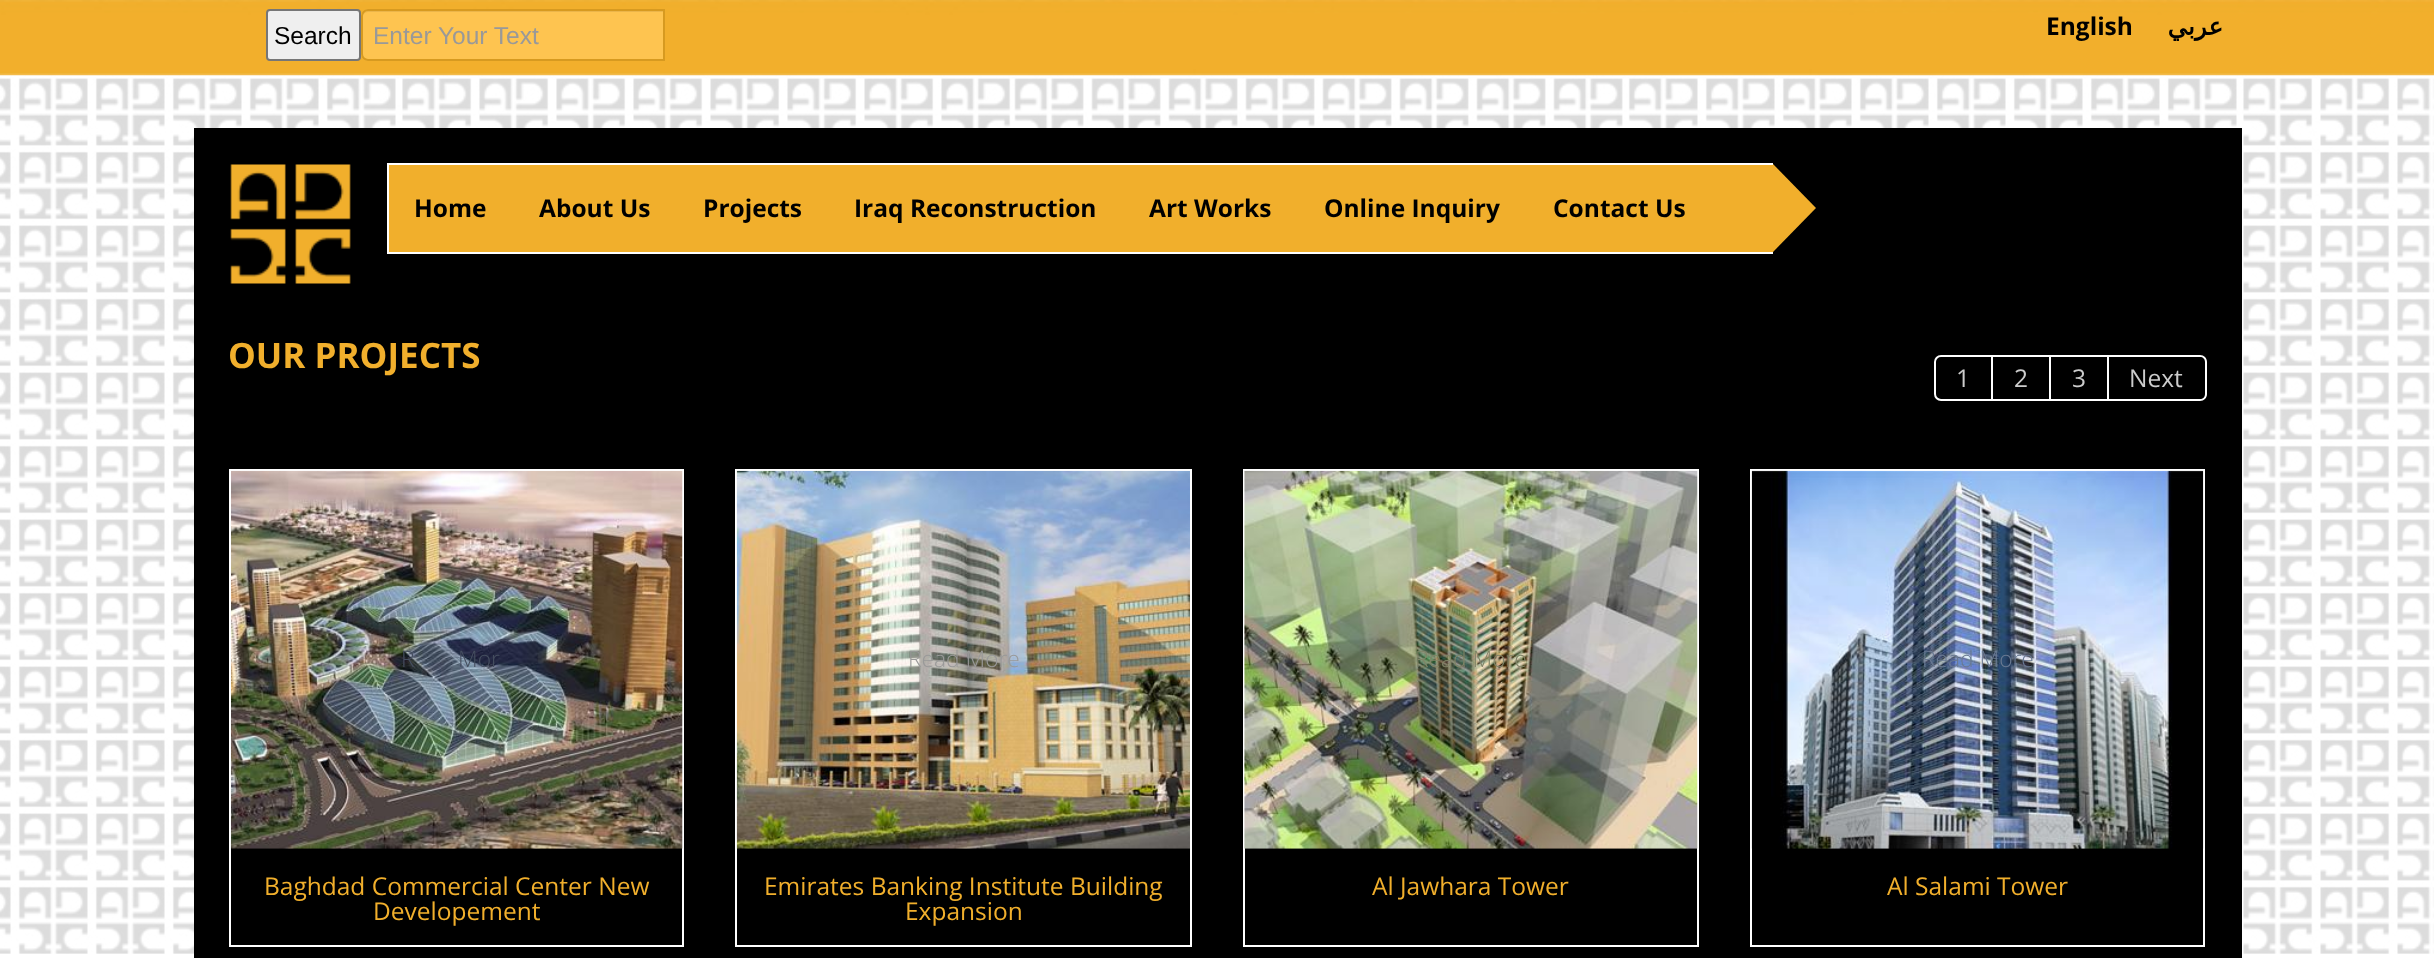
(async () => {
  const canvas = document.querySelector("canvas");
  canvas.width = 2434;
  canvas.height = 958;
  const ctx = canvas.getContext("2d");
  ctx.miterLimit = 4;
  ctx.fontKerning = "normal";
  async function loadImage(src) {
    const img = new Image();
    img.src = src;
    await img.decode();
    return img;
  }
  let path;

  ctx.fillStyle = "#ffffff";
  ctx.fillRect(0, 0, 2434, 958);
  ctx.drawImage(await loadImage("img/1.png"), 0, 75, 2434, 879);
  ctx.drawImage(await loadImage("img/2.png"), 0, 0, 2434, 76);
  ctx.fillStyle = "#efefef";
  ctx.beginPath();
  ctx.roundRect(267, 10, 93, 50, 3);
  ctx.fill();
  ctx.strokeStyle = "#767676";
  ctx.lineWidth = 2;
  ctx.stroke();
  ctx.fillStyle = "#fec450";
  ctx.beginPath();
  ctx.roundRect(361, 9, 304, 52, [7, 0, 0, 7]);
  ctx.fill();
  ctx.fillStyle = "#ebb54a";
  path = new Path2D("M368 12H663V11H367C363 11 362 15 362 18C362 15 365 12 368 12Z");
  ctx.fill(path);
  ctx.beginPath();
  ctx.roundRect(362, 10, 302, 50, [6, 0, 0, 6]);
  ctx.strokeStyle = "#d79a20";
  ctx.stroke();
  ctx.fillStyle = "#000000";
  ctx.fillRect(194, 128, 2048, 830);
  ctx.drawImage(await loadImage("img/3.png"), 230, 164, 121, 120);
  for (const [x, y, w, h, color] of [
    [389, 165, 1384, 87, "#f1af2c"],
    [387, 163, 1386, 2, "#ffffff"],
    [387, 252, 1386, 2, "#ffffff"],
    [387, 163, 2, 91, "#ffffff"],
  ]) {
    ctx.fillStyle = color;
    ctx.fillRect(x, y, w, h);
  }
  ctx.fillStyle = "#f1af2c";
  path = new Path2D("M1773 252V164L1816 208Z");
  ctx.fill(path);
  ctx.beginPath();
  ctx.roundRect(1935, 356, 57, 44, [6, 0, 0, 6]);
  ctx.strokeStyle = "#ffffff";
  ctx.stroke();
  for (const [x, y, w, h, color] of [
    [1993, 355, 116, 2, "#ffffff"],
    [2049, 355, 2, 46, "#ffffff"],
    [1993, 399, 58, 2, "#ffffff"],
    [2107, 355, 2, 46, "#ffffff"],
    [2051, 399, 58, 2, "#ffffff"],
  ]) {
    ctx.fillStyle = color;
    ctx.fillRect(x, y, w, h);
  }
  path = new Path2D("M2109 355H2200C2204 355 2207 358 2207 362V394C2207 398 2204 401 2200 401H2109ZM2109 357H2200C2203 357 2205 359 2205 362V394C2205 397 2203 399 2200 399H2109Z");
  ctx.fill(path, "evenodd");
  ctx.strokeRect(230, 470, 453, 476);
  ctx.drawImage(await loadImage("img/4.png"), 231, 470, 452, 379);
  ctx.strokeRect(736, 470, 455, 476);
  ctx.drawImage(await loadImage("img/5.png"), 736, 470, 454, 379);
  ctx.strokeRect(1244, 470, 454, 476);
  ctx.drawImage(await loadImage("img/6.png"), 1244, 470, 454, 379);
  ctx.strokeRect(1751, 470, 453, 476);
  ctx.drawImage(await loadImage("img/7.png"), 1751, 470, 453, 379);
  ctx.font = "24.5px Liberation Sans";
  ctx.fillStyle = "#000000";
  ctx.fillText("Search", 274, 44);
  ctx.fillStyle = "#999999";
  ctx.fillText("Enter Your Text", 373, 44);
  ctx.font = "bold 24.5px Open Sans";
  ctx.fillStyle = "#000000";
  ctx.fillText("English", 2046, 35);
  ctx.direction = "rtl";
  ctx.font = "bold 24.5px DejaVu Sans";
  ctx.fillText("عربي", 2223, 35);
  ctx.direction = "ltr";
  ctx.font = "bold 24.5px Open Sans";
  for (const [text, x, y] of [
    ["Home", 414, 217],
    ["About Us", 539, 217],
    ["Projects", 703, 217],
    ["Iraq Reconstruction", 854, 217],
    ["Art Works", 1149, 217],
    ["Online Inquiry", 1324, 217],
    ["Contact Us", 1553, 217],
  ]) {
    ctx.fillText(text, x, y);
  }
  ctx.font = "bold 35px Open Sans";
  ctx.fillStyle = "#f1af2c";
  ctx.fillText("OUR PROJECTS", 228, 368);
  ctx.font = "24.5px Open Sans";
  ctx.fillStyle = "#cccccc";
  for (const [text, x, y] of [
    ["1", 1956, 387],
    ["2", 2014, 387],
    ["3", 2072, 387],
    ["Next", 2129, 387],
  ]) {
    ctx.fillText(text, x, y);
  }
  ctx.font = "300 22.75px Open Sans";
  ctx.fillStyle = "#454e5f";
  ctx.fillText("R", 401, 667);
  ctx.fillText("Mor", 458, 667);
  ctx.font = "24.5px Open Sans";
  ctx.fillStyle = "#f1af2c";
  ctx.fillText("Baghdad Commercial Center New", 264, 895);
  ctx.fillText("Developement", 373, 920);
  ctx.font = "300 22.75px Open Sans";
  ctx.fillStyle = "#999999";
  ctx.fillText("Read More", 908, 667);
  ctx.font = "24.5px Open Sans";
  ctx.fillStyle = "#f1af2c";
  ctx.fillText("Emirates Banking Institute Building", 764, 895);
  ctx.fillText("Expansion", 905, 920);
  ctx.font = "300 22.75px Open Sans";
  ctx.fillStyle = "#808467";
  ctx.fillText("Read More", 1415, 667);
  ctx.font = "24.5px Open Sans";
  ctx.fillStyle = "#f1af2c";
  ctx.fillText("Al Jawhara Tower", 1372, 895);
  ctx.font = "300 22.75px Open Sans";
  ctx.fillStyle = "#697992";
  ctx.fillText("Read More", 1922, 667);
  ctx.font = "24.5px Open Sans";
  ctx.fillStyle = "#f1af2c";
  ctx.fillText("Al Salami Tower", 1887, 895);
})();
